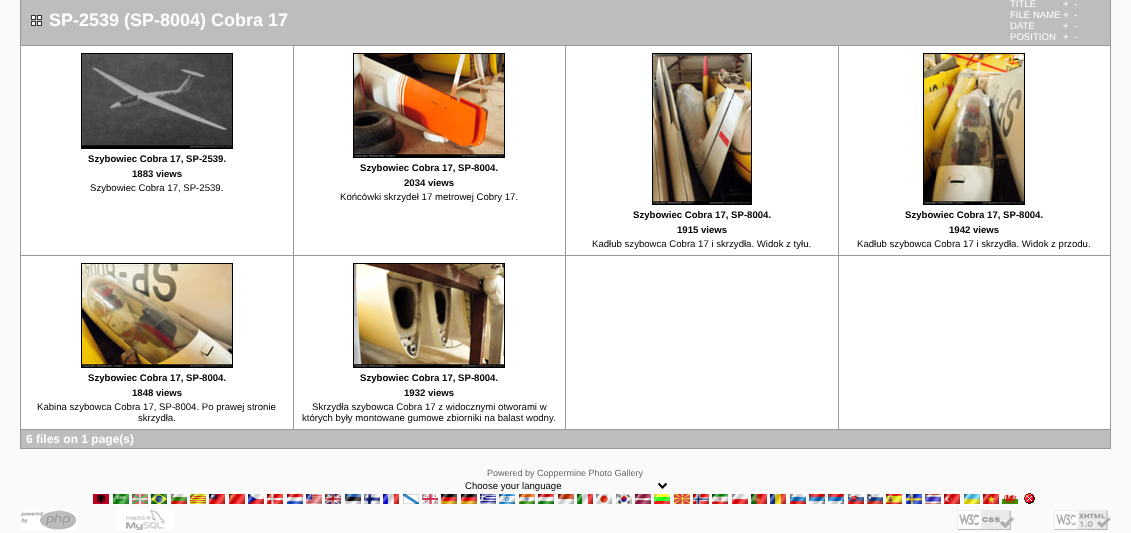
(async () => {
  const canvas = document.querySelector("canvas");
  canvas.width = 1131;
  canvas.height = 533;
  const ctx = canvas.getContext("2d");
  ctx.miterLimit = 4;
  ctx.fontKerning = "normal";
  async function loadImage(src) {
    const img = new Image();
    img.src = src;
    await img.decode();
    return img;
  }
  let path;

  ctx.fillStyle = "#fafafa";
  ctx.fillRect(0, 0, 1131, 533);
  ctx.fillStyle = "#999999";
  ctx.fillRect(20, 0, 1091, 449);
  ctx.fillStyle = "#bdbdbd";
  ctx.fillRect(21, 0, 1089, 45);
  ctx.drawImage(await loadImage("img/1.png"), 31, 15, 11, 11);
  ctx.fillStyle = "#ffffff";
  ctx.fillRect(21, 46, 272, 209);
  ctx.strokeStyle = "#000000";
  ctx.strokeRect(81.5, 53.5, 151, 95);
  ctx.drawImage(await loadImage("img/2.png"), 82, 54, 150, 94);
  ctx.fillRect(294, 46, 271, 209);
  ctx.strokeRect(353.5, 53.5, 151, 104);
  ctx.drawImage(await loadImage("img/3.png"), 354, 54, 150, 103);
  ctx.fillRect(566, 46, 272, 209);
  ctx.strokeRect(652.5, 53.5, 99, 151);
  ctx.drawImage(await loadImage("img/4.png"), 653, 54, 98, 150);
  ctx.fillRect(839, 46, 271, 209);
  ctx.strokeRect(923.5, 53.5, 101, 151);
  ctx.drawImage(await loadImage("img/5.png"), 924, 54, 100, 150);
  ctx.fillRect(21, 256, 272, 173);
  ctx.strokeRect(81.5, 263.5, 151, 104);
  ctx.drawImage(await loadImage("img/6.png"), 82, 264, 150, 103);
  ctx.fillRect(294, 256, 271, 173);
  ctx.strokeRect(353.5, 263.5, 151, 104);
  ctx.drawImage(await loadImage("img/7.png"), 354, 264, 150, 103);
  for (const [x, y, w, h, color] of [
    [566, 256, 272, 173, "#ffffff"],
    [839, 256, 271, 173, "#ffffff"],
    [21, 430, 1089, 18, "#bdbdbd"],
  ]) {
    ctx.fillStyle = color;
    ctx.fillRect(x, y, w, h);
  }
  path = new Path2D("M658.5 483.5L662.5 487.5L666.5 483.5");
  ctx.lineWidth = 2;
  ctx.stroke(path);
  ctx.drawImage(await loadImage("img/8.png"), 93, 494, 16, 10);
  ctx.drawImage(await loadImage("img/9.png"), 113, 494, 16, 10);
  ctx.drawImage(await loadImage("img/10.png"), 132, 494, 16, 10);
  ctx.drawImage(await loadImage("img/11.png"), 151, 494, 16, 10);
  ctx.drawImage(await loadImage("img/12.png"), 171, 494, 16, 10);
  ctx.drawImage(await loadImage("img/13.png"), 190, 494, 16, 10);
  ctx.drawImage(await loadImage("img/14.png"), 209, 494, 16, 10);
  ctx.drawImage(await loadImage("img/15.png"), 229, 494, 16, 10);
  ctx.drawImage(await loadImage("img/16.png"), 248, 494, 16, 10);
  ctx.drawImage(await loadImage("img/17.png"), 267, 494, 16, 10);
  ctx.drawImage(await loadImage("img/18.png"), 287, 494, 16, 10);
  ctx.drawImage(await loadImage("img/19.png"), 306, 494, 16, 10);
  ctx.drawImage(await loadImage("img/20.png"), 325, 494, 16, 10);
  ctx.drawImage(await loadImage("img/21.png"), 345, 494, 16, 10);
  ctx.drawImage(await loadImage("img/22.png"), 364, 494, 16, 10);
  ctx.drawImage(await loadImage("img/23.png"), 383, 494, 16, 10);
  ctx.drawImage(await loadImage("img/24.png"), 403, 494, 16, 10);
  ctx.drawImage(await loadImage("img/25.png"), 422, 494, 16, 10);
  ctx.drawImage(await loadImage("img/26.png"), 441, 494, 16, 10);
  ctx.drawImage(await loadImage("img/26.png"), 461, 494, 16, 10);
  ctx.drawImage(await loadImage("img/27.png"), 480, 494, 16, 10);
  ctx.drawImage(await loadImage("img/28.png"), 499, 494, 16, 10);
  ctx.drawImage(await loadImage("img/29.png"), 519, 494, 16, 10);
  ctx.drawImage(await loadImage("img/30.png"), 538, 494, 16, 10);
  ctx.drawImage(await loadImage("img/31.png"), 558, 494, 16, 10);
  ctx.drawImage(await loadImage("img/32.png"), 577, 494, 16, 10);
  ctx.drawImage(await loadImage("img/33.png"), 596, 494, 16, 10);
  ctx.drawImage(await loadImage("img/34.png"), 616, 494, 16, 10);
  ctx.drawImage(await loadImage("img/35.png"), 635, 494, 16, 10);
  ctx.drawImage(await loadImage("img/36.png"), 654, 494, 16, 10);
  ctx.drawImage(await loadImage("img/37.png"), 674, 494, 16, 10);
  ctx.drawImage(await loadImage("img/38.png"), 693, 494, 16, 10);
  ctx.drawImage(await loadImage("img/39.png"), 712, 494, 16, 10);
  ctx.drawImage(await loadImage("img/40.png"), 732, 494, 16, 10);
  ctx.drawImage(await loadImage("img/41.png"), 751, 494, 16, 10);
  ctx.drawImage(await loadImage("img/42.png"), 770, 494, 16, 10);
  ctx.drawImage(await loadImage("img/43.png"), 790, 494, 16, 10);
  ctx.drawImage(await loadImage("img/44.png"), 809, 494, 16, 10);
  ctx.drawImage(await loadImage("img/44.png"), 828, 494, 16, 10);
  ctx.drawImage(await loadImage("img/45.png"), 848, 494, 16, 10);
  ctx.drawImage(await loadImage("img/46.png"), 867, 494, 16, 10);
  ctx.drawImage(await loadImage("img/47.png"), 886, 494, 16, 10);
  ctx.drawImage(await loadImage("img/48.png"), 906, 494, 16, 10);
  ctx.drawImage(await loadImage("img/49.png"), 925, 494, 16, 10);
  ctx.drawImage(await loadImage("img/50.png"), 944, 494, 16, 10);
  ctx.drawImage(await loadImage("img/51.png"), 964, 494, 16, 10);
  ctx.drawImage(await loadImage("img/52.png"), 983, 494, 16, 10);
  ctx.drawImage(await loadImage("img/53.png"), 1002, 494, 16, 10);
  ctx.drawImage(await loadImage("img/54.png"), 1024, 493, 11, 11);
  ctx.drawImage(await loadImage("img/55.png"), 20, 510, 57, 20);
  ctx.drawImage(await loadImage("img/56.png"), 117, 510, 57, 20);
  ctx.drawImage(await loadImage("img/57.png"), 957, 510, 57, 20);
  ctx.drawImage(await loadImage("img/58.png"), 1054, 510, 57, 20);
  ctx.font = "bold 18px Liberation Sans";
  ctx.fillStyle = "#ffffff";
  ctx.fillText("SP-2539 (SP-8004) Cobra 17", 49, 26);
  ctx.font = "9.6px Liberation Sans";
  for (const [text, x, y] of [
    ["TITLE", 1010, 7],
    ["+", 1063, 7],
    ["-", 1074, 7],
    ["FILE NAME +", 1010, 18],
    ["-", 1074, 18],
    ["DATE", 1010, 29],
    ["+", 1063, 29],
    ["-", 1074, 29],
    ["POSITION", 1010, 40],
    ["+", 1063, 40],
    ["-", 1074, 40],
  ]) {
    ctx.fillText(text, x, y);
  }
  ctx.font = "bold 9.6px Liberation Sans";
  ctx.fillStyle = "#000000";
  ctx.fillText("Szybowiec Cobra 17, SP-2539.", 88, 162);
  ctx.fillText("1883 views", 132, 177);
  ctx.font = "9.6px Liberation Sans";
  ctx.fillText("Szybowiec Cobra 17, SP-2539.", 90, 191);
  ctx.font = "bold 9.6px Liberation Sans";
  ctx.fillText("Szybowiec Cobra 17, SP-8004.", 360, 171);
  ctx.fillText("2034 views", 404, 186);
  ctx.font = "9.6px Liberation Sans";
  ctx.fillText("Końcówki skrzydeł 17 metrowej Cobry 17.", 340, 200);
  ctx.font = "bold 9.6px Liberation Sans";
  ctx.fillText("Szybowiec Cobra 17, SP-8004.", 633, 218);
  ctx.fillText("1915 views", 677, 233);
  ctx.font = "9.6px Liberation Sans";
  ctx.fillText("Kadłub szybowca Cobra 17 i skrzydła. Widok z tyłu.", 592, 247);
  ctx.font = "bold 9.6px Liberation Sans";
  ctx.fillText("Szybowiec Cobra 17, SP-8004.", 905, 218);
  ctx.fillText("1942 views", 949, 233);
  ctx.font = "9.6px Liberation Sans";
  ctx.fillText("Kadłub szybowca Cobra 17 i skrzydła. Widok z przodu.", 857, 247);
  ctx.font = "bold 9.6px Liberation Sans";
  ctx.fillText("Szybowiec Cobra 17, SP-8004.", 88, 381);
  ctx.fillText("1848 views", 132, 396);
  ctx.font = "9.6px Liberation Sans";
  ctx.fillText("Kabina szybowca Cobra 17, SP-8004. Po prawej stronie", 37, 410);
  ctx.fillText("skrzydła.", 138, 421);
  ctx.font = "bold 9.6px Liberation Sans";
  ctx.fillText("Szybowiec Cobra 17, SP-8004.", 360, 381);
  ctx.fillText("1932 views", 404, 396);
  ctx.font = "9.6px Liberation Sans";
  ctx.fillText("Skrzydła szybowca Cobra 17 z widocznymi otworami w", 312, 410);
  ctx.fillText("których były montowane gumowe zbiorniki na balast wodny.", 302, 421);
  ctx.font = "bold 12px Liberation Sans";
  ctx.fillStyle = "#ffffff";
  ctx.fillText("6 files on 1 page(s)", 26, 443);
  ctx.font = "9px Liberation Sans";
  ctx.fillStyle = "#666666";
  ctx.fillText("Powered by Coppermine Photo Gallery", 487, 476);
  ctx.font = "9.6px Liberation Sans";
  ctx.fillStyle = "#000000";
  ctx.fillText("Choose your language", 465, 489);
})();
